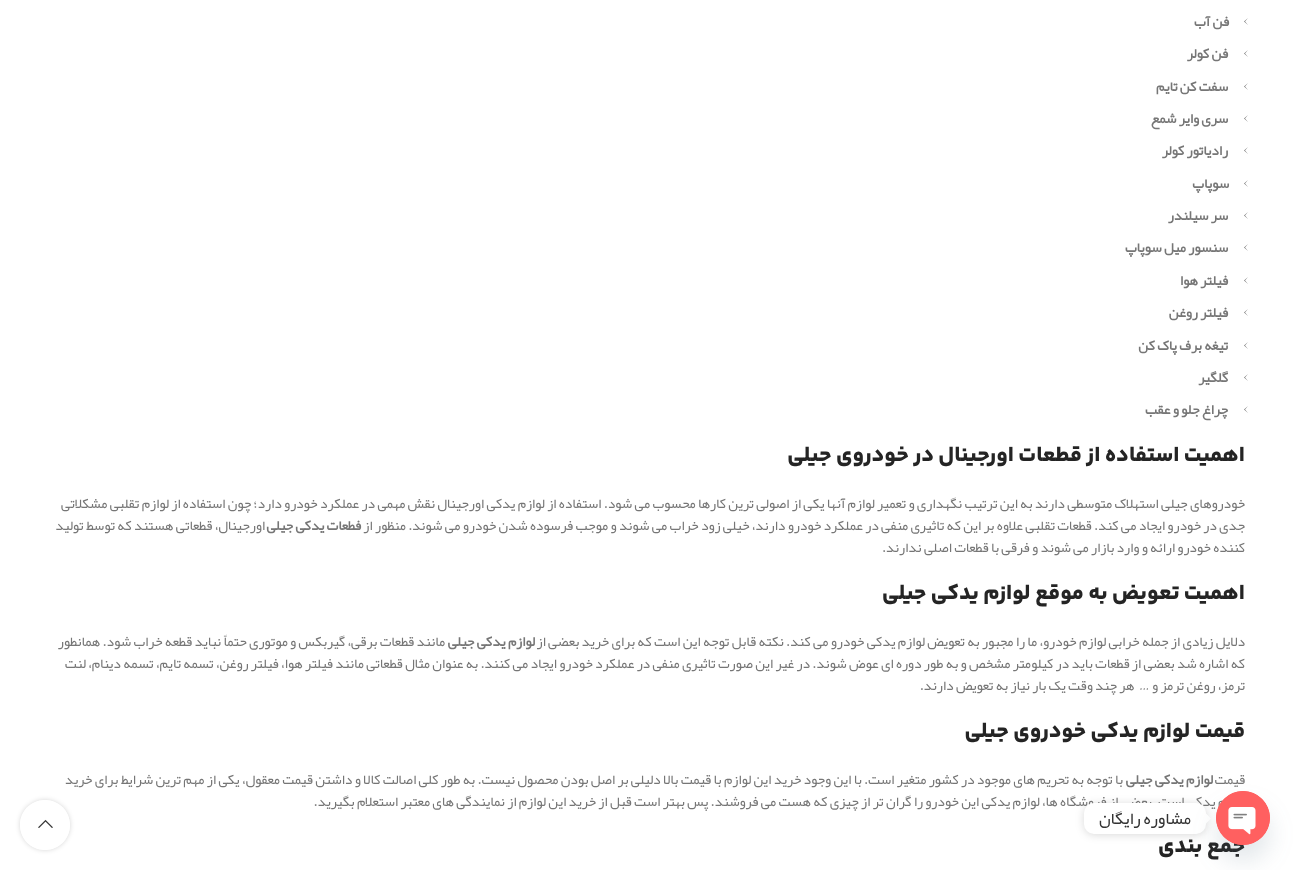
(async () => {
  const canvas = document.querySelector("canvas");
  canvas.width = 1299;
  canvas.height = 870;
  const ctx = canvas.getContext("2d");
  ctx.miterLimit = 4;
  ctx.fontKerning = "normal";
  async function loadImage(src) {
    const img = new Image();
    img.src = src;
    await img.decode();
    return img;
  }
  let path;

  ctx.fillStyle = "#ffffff";
  ctx.fillRect(0, 0, 1299, 870);
  ctx.fillStyle = "#767676";
  path = new Path2D("M1248 18L1244 21.5L1248 25L1245 21.5Z");
  ctx.fill(path);
  path = new Path2D("M1248 50L1244 53.5L1248 57L1245 53.5Z");
  ctx.fill(path);
  path = new Path2D("M1248 83L1244 86.5L1248 90L1245 86.5Z");
  ctx.fill(path);
  path = new Path2D("M1248 115L1244 118.5L1248 122L1245 118.5Z");
  ctx.fill(path);
  path = new Path2D("M1248 147L1244 150.5L1248 154L1245 150.5Z");
  ctx.fill(path);
  path = new Path2D("M1248 180L1244 183.5L1248 187L1245 183.5Z");
  ctx.fill(path);
  path = new Path2D("M1248 212L1244 215.5L1248 219L1245 215.5Z");
  ctx.fill(path);
  path = new Path2D("M1248 244L1244 247.5L1248 251L1245 247.5Z");
  ctx.fill(path);
  path = new Path2D("M1248 277L1244 280.5L1248 284L1245 280.5Z");
  ctx.fill(path);
  path = new Path2D("M1248 309L1244 312.5L1248 316L1245 312.5Z");
  ctx.fill(path);
  path = new Path2D("M1248 342L1244 345.5L1248 349L1245 345.5Z");
  ctx.fill(path);
  path = new Path2D("M1248 374L1244 377.5L1248 381L1245 377.5Z");
  ctx.fill(path);
  path = new Path2D("M1248 406L1244 409.5L1248 413L1245 409.5Z");
  ctx.fill(path);
  ctx.save();
  path = new Path2D("M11 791H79V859H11ZM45 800C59 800 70 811 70 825C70 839 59 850 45 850C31 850 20 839 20 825C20 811 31 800 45 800Z");
  ctx.clip(path, "evenodd");
  ctx.fillStyle = "rgba(0, 0, 0, 0.17)";
  ctx.filter = "blur(2.5px)";
  ctx.beginPath();
  ctx.roundRect(20, 800, 50, 50, 25);
  ctx.fill();
  ctx.filter = "none";
  ctx.restore();
  ctx.fillStyle = "rgba(255, 255, 255, 0.9)";
  ctx.beginPath();
  ctx.arc(45, 825, 25, 0, Math.PI * 2);
  ctx.fill();
  ctx.drawImage(await loadImage("img/1.png"), 38, 819, 15, 9);
  ctx.fillStyle = "rgba(0, 0, 0, 0.15)";
  ctx.filter = "blur(4px)";
  ctx.beginPath();
  ctx.roundRect(1084, 804, 122, 31, 10);
  ctx.fill();
  ctx.filter = "none";
  ctx.fillStyle = "#ffffff";
  path = new Path2D("M1206 823.5V813.5L1211 818.5Z");
  ctx.fill(path);
  ctx.direction = "rtl";
  ctx.font = "bold 14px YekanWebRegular";
  ctx.fillStyle = "#767676";
  for (const [text, x, y] of [
    ["فن آب", 1229, 26],
    ["فن کولر", 1228, 58],
    ["سفت کن تایم", 1228, 91],
    ["سری وایر شمع", 1228, 123],
    ["رادیاتور کولر", 1228, 155],
    ["سوپاپ", 1229, 188],
    ["سر سیلندر", 1228, 220],
    ["سنسور میل سوپاپ", 1228, 252],
    ["فیلتر هوا", 1228, 285],
    ["فیلتر روغن", 1228, 317],
    ["تیغه برف پاک کن", 1228, 350],
    ["گلگیر", 1228, 382],
    ["چراغ جلو و عقب", 1228, 414],
  ]) {
    ctx.fillText(text, x, y);
  }
  ctx.font = "800 22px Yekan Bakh";
  ctx.fillStyle = "#242424";
  ctx.fillText("اهمیت استفاده از قطعات اورجینال در خودروی جیلی", 1245, 461);
  ctx.font = "14px YekanWebRegular";
  ctx.fillStyle = "#767676";
  ctx.fillText("خودروهای جیلی استهلاک متوسطی دارند به این ترتیب نگهداری و تعمیر لوازم آنها یکی از اصولی ترین کارها محسوب می شود. استفاده از لوازم یدکی اورجینال نقش مهمی در عملکرد خودرو دارد؛ چون استفاده از لوازم تقلبی مشکلاتی", 1245, 508);
  ctx.fillText("جدی در خودرو ایجاد می کند. قطعات تقلبی علاوه بر این که تاثیری منفی در عملکرد خودرو دارند، خیلی زود خراب می شوند و موجب فرسوده شدن خودرو می شوند. منظور از", 1245, 530);
  ctx.font = "bold 14px YekanWebRegular";
  ctx.fillText("فطعات یدکی جیلی", 361, 530);
  ctx.font = "14px YekanWebRegular";
  ctx.fillText("اورجینال، قطعاتی هستند که توسط تولید", 265, 530);
  ctx.fillText("کننده خودرو ارائه و وارد بازار می شوند و فرقی با قطعات اصلی ندارند.", 1245, 552);
  ctx.font = "800 22px Yekan Bakh";
  ctx.fillStyle = "#242424";
  ctx.fillText("اهمیت تعویض به موقع لوازم یدکی جیلی", 1245, 599);
  ctx.font = "14px YekanWebRegular";
  ctx.fillStyle = "#767676";
  ctx.fillText("دلایل زیادی از جمله خرابی لوازم خودرو، ما را مجبور به تعویض لوازم یدکی خودرو می کند. نکته قابل توجه این است که برای خرید بعضی از", 1245, 646);
  ctx.font = "bold 14px YekanWebRegular";
  ctx.fillText("لوازم یدکی جیلی", 535, 646);
  ctx.font = "14px YekanWebRegular";
  for (const [text, x, y] of [
    ["مانند قطعات برقی، گیربکس و موتوری حتماً نباید قطعه خراب شود. همانطور", 445, 646],
    ["که اشاره شد بعضی از قطعات باید در کیلومتر مشخص و به طور دوره ای عوض شوند. در غیر این صورت تاثیری منفی در عملکرد خودرو ایجاد می کنند. به عنوان مثال قطعاتی مانند فیلتر هوا، فیلتر روغن، تسمه تایم، تسمه دینام، لنت", 1245, 668],
    ["ترمز، روغن ترمز و …  هر چند وقت یک بار نیاز به تعویض دارند.", 1245, 690],
  ]) {
    ctx.fillText(text, x, y);
  }
  ctx.font = "800 22px Yekan Bakh";
  ctx.fillStyle = "#242424";
  ctx.fillText("قیمت لوازم یدکی خودروی جیلی", 1245, 737);
  ctx.font = "14px YekanWebRegular";
  ctx.fillStyle = "#767676";
  ctx.fillText("قیمت", 1245, 784);
  ctx.font = "bold 14px YekanWebRegular";
  ctx.fillText("لوازم یدکی جیلی", 1213, 784);
  ctx.font = "14px YekanWebRegular";
  ctx.fillText("با توجه به تحریم های موجود در کشور متغیر است. با این وجود خرید این لوازم با قیمت بالا دلیلی بر اصل بودن محصول نیست. به طور کلی اصالت کالا و داشتن قیمت معقول، یکی از مهم ترین شرایط برای خرید", 1123, 784);
  ctx.fillText("لوازم یدکی است. بعضی از فروشگاه ها، لوازم یدکی این خودرو را گران تر از چیزی که هست می فروشند. پس بهتر است قبل از خرید این لوازم از نمایندگی های معتبر استعلام بگیرید.", 1245, 806);
  ctx.font = "800 22px Yekan Bakh";
  ctx.fillStyle = "#242424";
  ctx.fillText("جمع بندی", 1245, 852);
  ctx.fillStyle = "#ffffff";
  ctx.beginPath();
  ctx.roundRect(1084, 803, 122, 31, 10);
  ctx.fill();
  ctx.fillStyle = "rgba(73, 104, 126, 0.16)";
  ctx.filter = "blur(12px)";
  ctx.beginPath();
  ctx.roundRect(1216, 807, 54, 54, 27);
  ctx.fill();
  ctx.filter = "none";
  ctx.fillStyle = "#ff6060";
  ctx.beginPath();
  ctx.arc(1243, 818, 27, 0, Math.PI * 2);
  ctx.fill();
  ctx.drawImage(await loadImage("img/2.png"), 1216, 791, 54, 54);
  ctx.font = "17px YekanWebRegular";
  ctx.fillStyle = "#333333";
  ctx.fillText("مشاوره رایگان", 1191, 824);
})();
